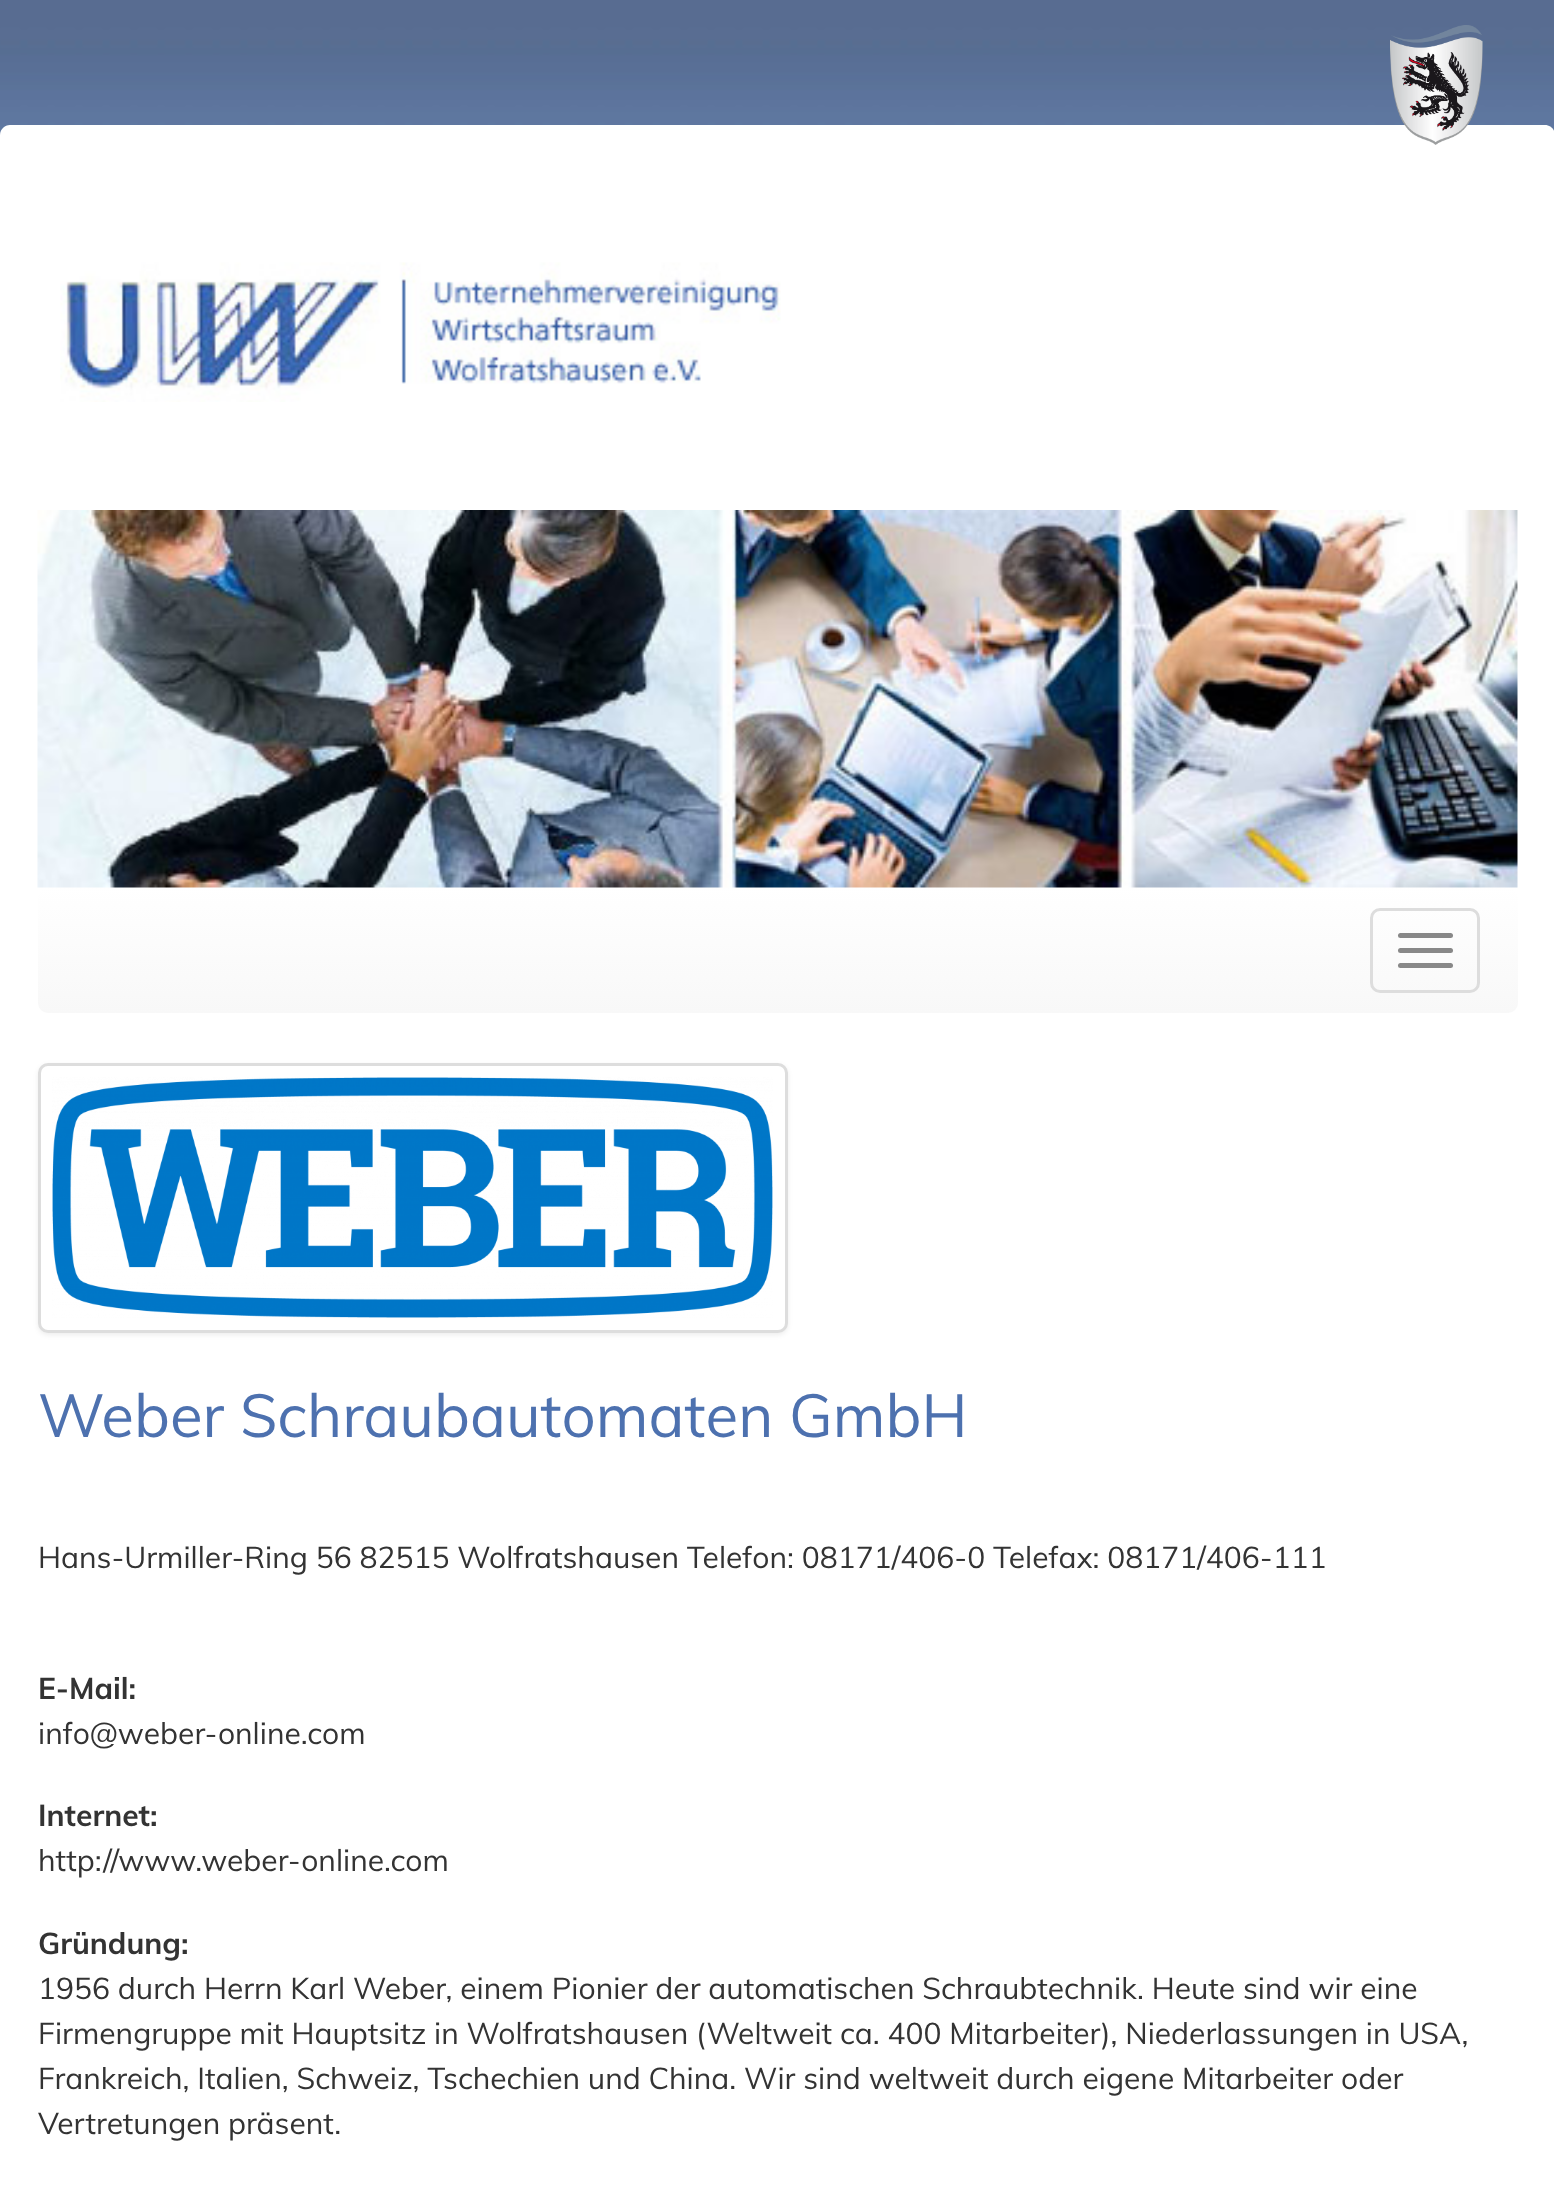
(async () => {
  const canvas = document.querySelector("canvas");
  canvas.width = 1554;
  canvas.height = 2190;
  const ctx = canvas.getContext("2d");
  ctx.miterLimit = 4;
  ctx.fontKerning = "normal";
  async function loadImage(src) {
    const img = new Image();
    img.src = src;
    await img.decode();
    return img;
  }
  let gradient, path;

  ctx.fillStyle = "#ffffff";
  ctx.fillRect(0, 0, 1554, 2190);
  ctx.drawImage(await loadImage("img/1.png"), 0, 0, 1554, 135);
  path = new Path2D("M10 125H1545C1550.5 125 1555 129.5 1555 135V888H0V135C0 129.5 4.5 125 10 125Z");
  ctx.fill(path);
  ctx.drawImage(await loadImage("img/2.png"), 1390, 25, 93, 120);
  ctx.drawImage(await loadImage("img/3.png"), 60, 262, 721, 140);
  ctx.drawImage(await loadImage("img/4.png"), 37, 510, 1481, 378);
  gradient = ctx.createLinearGradient(778, 887, 778, 1013);
  gradient.addColorStop(0, "#ffffff");
  gradient.addColorStop(1, "#f8f8f8");
  ctx.fillStyle = gradient;
  ctx.beginPath();
  ctx.roundRect(38, 888, 1480, 125, 10);
  ctx.fill();
  ctx.beginPath();
  ctx.roundRect(1371.5, 909.5, 107, 82, 8.5);
  ctx.strokeStyle = "#dddddd";
  ctx.lineWidth = 3;
  ctx.stroke();
  ctx.fillStyle = "#888888";
  ctx.beginPath();
  ctx.roundRect(1398, 933, 55, 5, 2.5);
  ctx.fill();
  ctx.beginPath();
  ctx.roundRect(1398, 948, 55, 5, 2.5);
  ctx.fill();
  ctx.beginPath();
  ctx.roundRect(1398, 963, 55, 5, 2.5);
  ctx.fill();
  ctx.fillStyle = "rgba(0, 0, 0, 0.07)";
  ctx.filter = "blur(2.5px)";
  ctx.beginPath();
  ctx.roundRect(38, 1065, 750, 270, 10);
  ctx.fill();
  ctx.filter = "none";
  ctx.fillStyle = "#ffffff";
  ctx.beginPath();
  ctx.roundRect(39.5, 1064.5, 747, 267, 8.5);
  ctx.fill();
  ctx.stroke();
  ctx.drawImage(await loadImage("img/5.png"), 52, 1077, 721, 241);
  ctx.font = "60px Muli";
  ctx.fillStyle = "#4d71af";
  ctx.fillText("Weber Schraubautomaten GmbH", 38, 1437);
  ctx.font = "30px Muli";
  ctx.fillStyle = "#333333";
  ctx.fillText("Hans-Urmiller-Ring 56 82515 Wolfratshausen Telefon: 08171/406-0 Telefax: 08171/406-111", 38, 1568);
  ctx.font = "bold 30px Muli";
  ctx.fillText("E-Mail:", 38, 1699);
  ctx.font = "30px Muli";
  ctx.fillText("info@weber-online.com", 38, 1744);
  ctx.font = "bold 30px Muli";
  ctx.fillText("Internet:", 38, 1826);
  ctx.font = "30px Muli";
  ctx.fillText("http://www.weber-online.com", 38, 1871);
  ctx.font = "bold 30px Muli";
  ctx.fillText("Gründung:", 38, 1954);
  ctx.font = "30px Muli";
  for (const [text, x, y] of [
    ["1956 durch Herrn Karl Weber, einem Pionier der automatischen Schraubtechnik. Heute sind wir eine", 38, 1999],
    ["Firmengruppe mit Hauptsitz in Wolfratshausen (Weltweit ca. 400 Mitarbeiter), Niederlassungen in USA,", 38, 2044],
    ["Frankreich, Italien, Schweiz, Tschechien und China. Wir sind weltweit durch eigene Mitarbeiter oder", 38, 2089],
    ["Vertretungen präsent.", 38, 2134],
  ]) {
    ctx.fillText(text, x, y);
  }
})();
